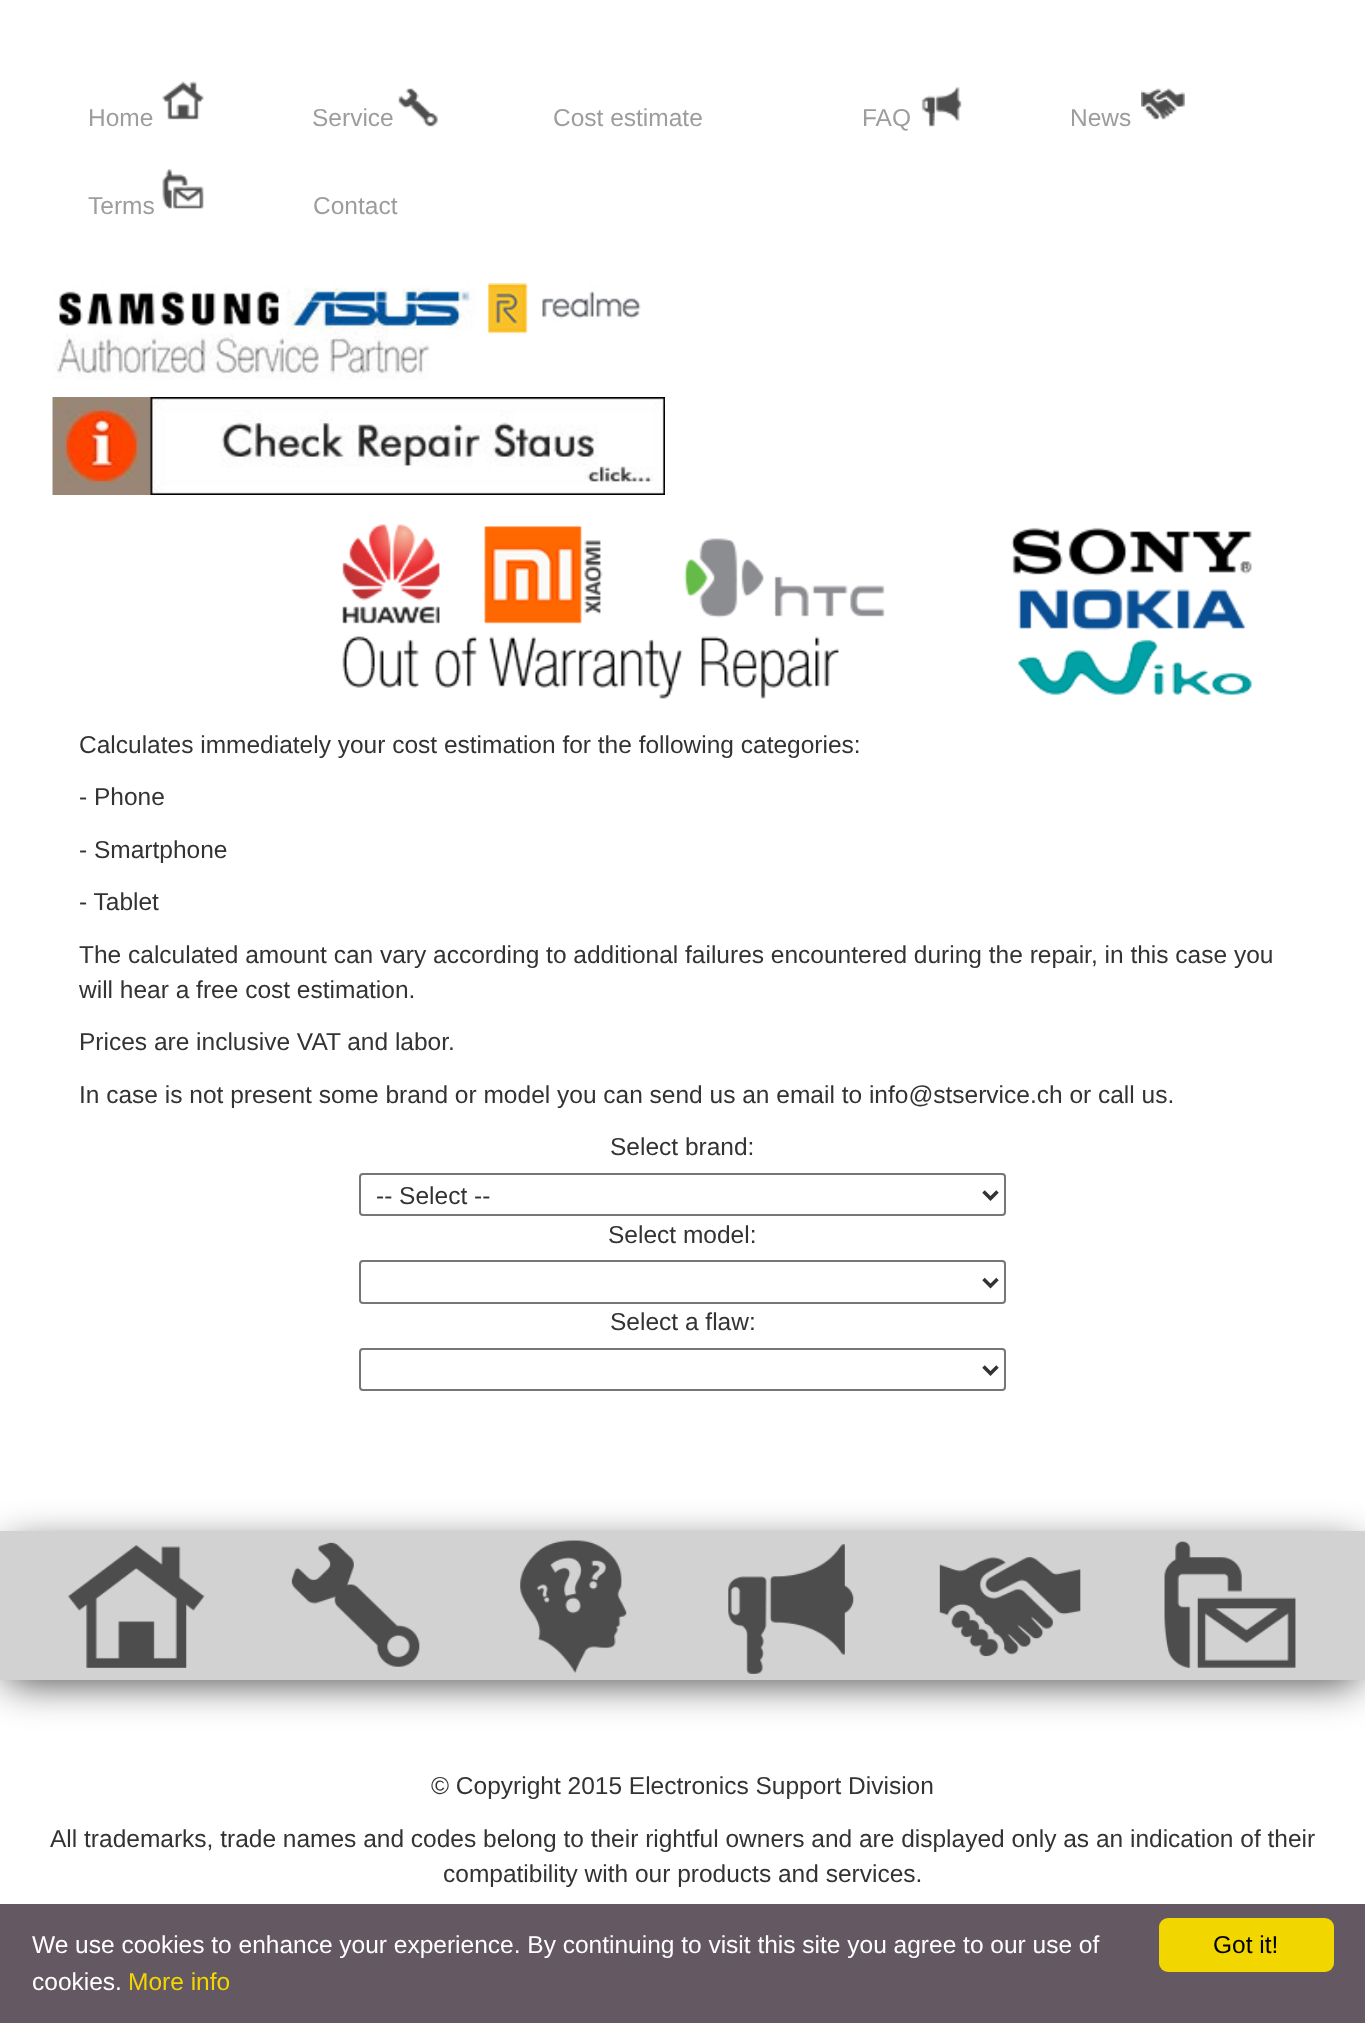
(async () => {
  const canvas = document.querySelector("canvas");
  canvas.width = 1365;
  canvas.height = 2023;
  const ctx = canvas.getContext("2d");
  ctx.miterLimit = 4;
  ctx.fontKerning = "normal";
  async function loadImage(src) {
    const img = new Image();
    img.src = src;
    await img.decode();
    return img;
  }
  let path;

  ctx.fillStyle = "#ffffff";
  ctx.fillRect(0, 0, 1365, 2023);
  ctx.drawImage(await loadImage("img/1.png"), 162, 81, 42, 39);
  ctx.drawImage(await loadImage("img/2.png"), 398, 88, 40, 39);
  ctx.drawImage(await loadImage("img/3.png"), 921, 87, 41, 40);
  ctx.drawImage(await loadImage("img/4.png"), 1141, 88, 44, 32);
  ctx.drawImage(await loadImage("img/5.png"), 162, 169, 42, 40);
  ctx.drawImage(await loadImage("img/6.png"), 53, 283, 588, 97);
  ctx.drawImage(await loadImage("img/7.png"), 52, 397, 613, 98);
  ctx.drawImage(await loadImage("img/8.png"), 342, 524, 910, 175);
  ctx.beginPath();
  ctx.roundRect(360, 1174, 645, 41, 3);
  ctx.strokeStyle = "#767676";
  ctx.lineWidth = 2;
  ctx.stroke();
  path = new Path2D("M983.5 1191.5L990.5 1198.5L997.5 1191.5");
  ctx.strokeStyle = "#333333";
  ctx.lineWidth = 3.5;
  ctx.stroke(path);
  ctx.beginPath();
  ctx.roundRect(360, 1261, 645, 42, 3);
  ctx.strokeStyle = "#767676";
  ctx.lineWidth = 2;
  ctx.stroke();
  path = new Path2D("M983.5 1279L990.5 1286L997.5 1279");
  ctx.strokeStyle = "#333333";
  ctx.lineWidth = 3.5;
  ctx.stroke(path);
  ctx.beginPath();
  ctx.roundRect(360, 1349, 645, 41, 3);
  ctx.strokeStyle = "#767676";
  ctx.lineWidth = 2;
  ctx.stroke();
  path = new Path2D("M983.5 1366.5L990.5 1373.5L997.5 1366.5");
  ctx.strokeStyle = "#333333";
  ctx.lineWidth = 3.5;
  ctx.stroke(path);
  ctx.fillStyle = "rgba(0, 0, 0, 0.75)";
  ctx.filter = "blur(21px)";
  ctx.beginPath();
  ctx.rect(7, 1547, 1351, 135);
  ctx.fill();
  ctx.filter = "none";
  ctx.fillStyle = "#d2d2d2";
  ctx.fillRect(0, 1531, 1365, 149);
  ctx.drawImage(await loadImage("img/9.png"), 68, 1545, 137, 123);
  ctx.drawImage(await loadImage("img/10.png"), 291, 1542, 129, 125);
  ctx.drawImage(await loadImage("img/11.png"), 520, 1540, 107, 133);
  ctx.drawImage(await loadImage("img/12.png"), 728, 1544, 126, 130);
  ctx.drawImage(await loadImage("img/13.png"), 939, 1557, 142, 100);
  ctx.drawImage(await loadImage("img/14.png"), 1164, 1541, 132, 127);
  ctx.fillStyle = "#645862";
  ctx.fillRect(0, 1904, 1365, 119);
  ctx.fillStyle = "#f1d600";
  ctx.beginPath();
  ctx.roundRect(1159, 1918, 175, 54, 9);
  ctx.fill();
  ctx.font = "24.5px Liberation Sans";
  ctx.fillStyle = "#9d9d9d";
  for (const [text, x, y] of [
    ["Home", 88, 126],
    ["Service", 312, 126],
    ["Cost estimate", 553, 126],
    ["FAQ", 862, 126],
    ["News", 1070, 126],
    ["Terms", 88, 214],
    ["Contact", 313, 214],
  ]) {
    ctx.fillText(text, x, y);
  }
  ctx.fillStyle = "#333333";
  for (const [text, x, y] of [
    ["Calculates immediately your cost estimation for the following categories:", 79, 753],
    ["- Phone", 79, 805],
    ["- Smartphone", 79, 858],
    ["- Tablet", 79, 910],
    ["The calculated amount can vary according to additional failures encountered during the repair, in this case you", 79, 963],
    ["will hear a free cost estimation.", 79, 998],
    ["Prices are inclusive VAT and labor.", 79, 1050],
    ["In case is not present some brand or model you can send us an email to info@stservice.ch or call us.", 79, 1103],
    ["Select brand:", 610, 1155],
    ["-- Select --", 376, 1204],
    ["Select model:", 608, 1243],
    ["Select a flaw:", 610, 1330],
    ["© Copyright 2015 Electronics Support Division", 431, 1794],
    ["All trademarks, trade names and codes belong to their rightful owners and are displayed only as an indication of their", 50, 1847],
    ["compatibility with our products and services.", 443, 1882],
  ]) {
    ctx.fillText(text, x, y);
  }
  ctx.fillStyle = "#ffffff";
  ctx.fillText("We use cookies to enhance your experience. By continuing to visit this site you agree to our use of", 32, 1953);
  ctx.fillText("cookies.", 32, 1990);
  ctx.fillStyle = "#f1d600";
  ctx.fillText("More info", 128, 1990);
  ctx.fillStyle = "#000000";
  ctx.fillText("Got it!", 1213, 1953);
})();
